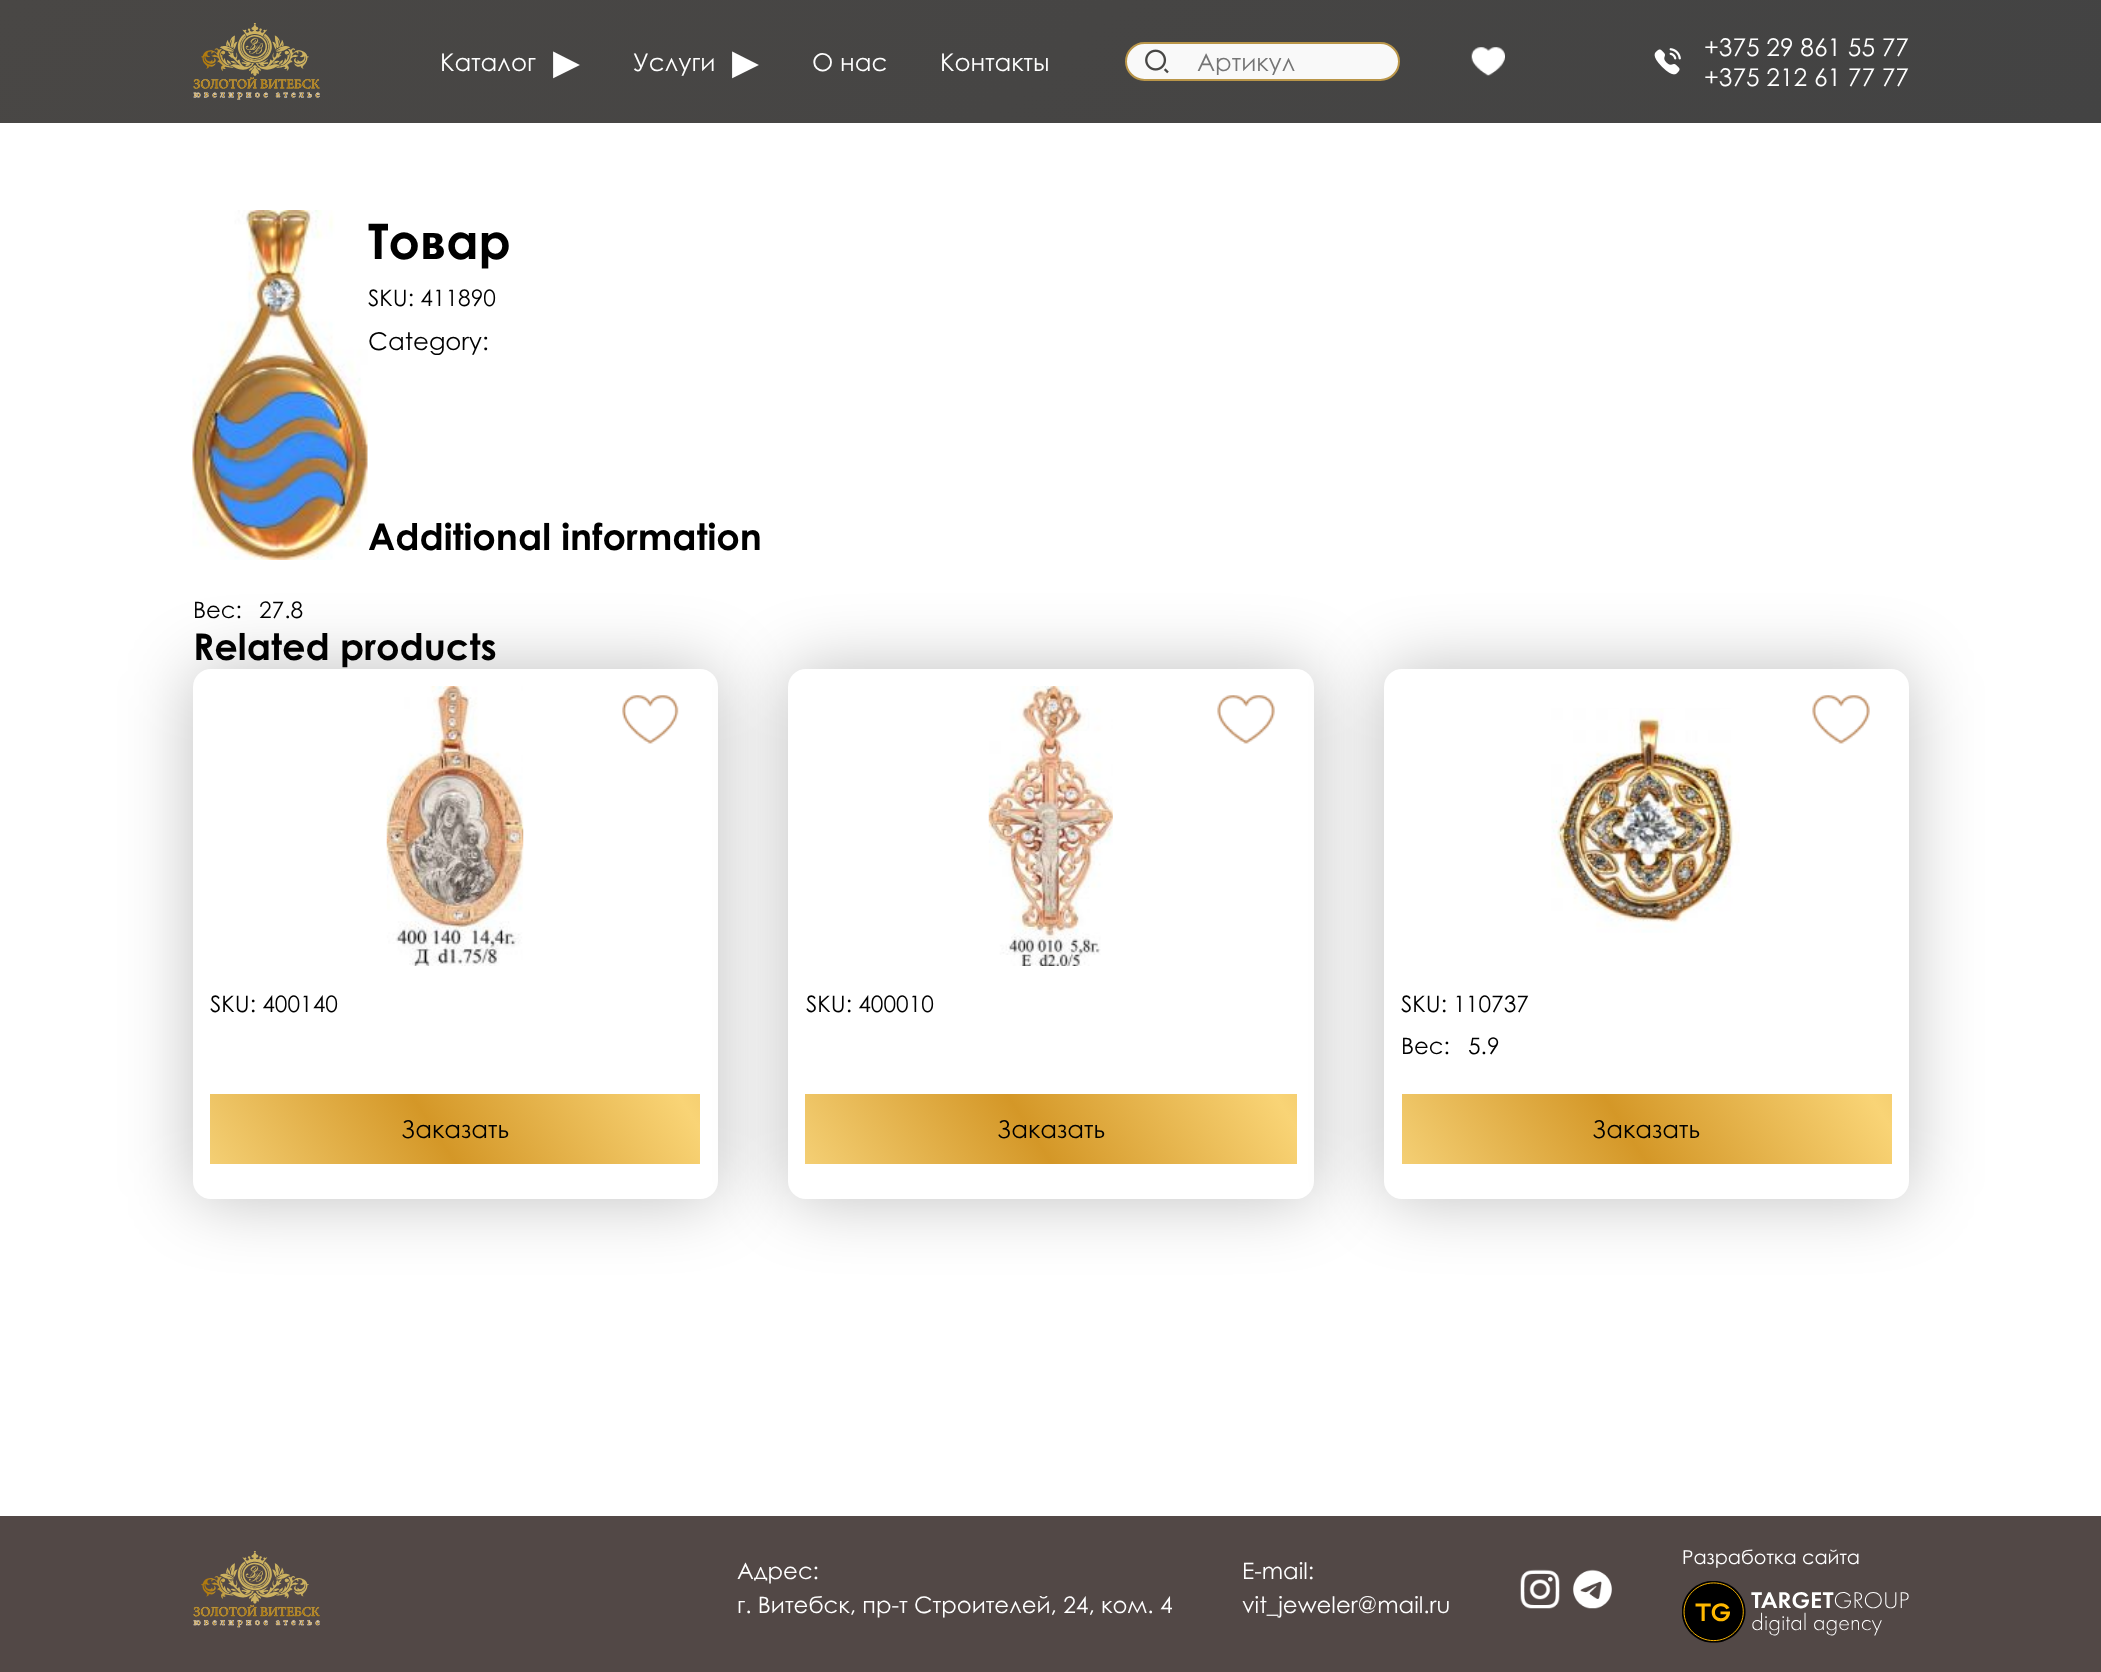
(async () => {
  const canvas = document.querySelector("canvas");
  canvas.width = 2101;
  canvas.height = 1672;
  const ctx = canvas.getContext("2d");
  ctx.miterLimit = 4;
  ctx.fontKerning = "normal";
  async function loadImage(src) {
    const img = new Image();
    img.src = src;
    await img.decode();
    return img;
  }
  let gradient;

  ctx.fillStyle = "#ffffff";
  ctx.fillRect(0, 0, 2101, 1672);
  gradient = ctx.createLinearGradient(550, -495, 1552, 618);
  gradient.addColorStop(0, "#494745");
  gradient.addColorStop(1, "#434343");
  ctx.fillStyle = gradient;
  ctx.fillRect(0, 0, 2101, 123);
  ctx.drawImage(await loadImage("img/1.png"), 193, 23, 127, 77);
  ctx.fillStyle = "#f9f9f9";
  ctx.beginPath();
  ctx.roundRect(1126, 43, 273, 37, 18.5);
  ctx.fill();
  ctx.strokeStyle = "#ba9649";
  ctx.lineWidth = 2;
  ctx.stroke();
  ctx.drawImage(await loadImage("img/2.png"), 1145, 49, 24, 25);
  ctx.drawImage(await loadImage("img/3.png"), 1471, 47, 34, 29);
  ctx.drawImage(await loadImage("img/4.png"), 1654, 48, 27, 27);
  ctx.drawImage(await loadImage("img/5.png"), 192, 210, 176, 350);
  ctx.fillStyle = "rgba(0, 0, 0, 0.25)";
  ctx.filter = "blur(35px)";
  ctx.beginPath();
  ctx.roundRect(193, 669, 525, 530, 18);
  ctx.fill();
  ctx.filter = "none";
  ctx.fillStyle = "#ffffff";
  ctx.beginPath();
  ctx.roundRect(193, 669, 525, 530, 18);
  ctx.fill();
  ctx.drawImage(await loadImage("img/6.png"), 386, 686, 138, 280);
  ctx.drawImage(await loadImage("img/7.png"), 622, 695, 57, 49);
  gradient = ctx.createLinearGradient(1061, 895, 339, 1363);
  gradient.addColorStop(0, "#f9cf68");
  gradient.addColorStop(0.26, "#d3a044");
  gradient.addColorStop(0.5, "#f9d476");
  gradient.addColorStop(0.76, "#d49727");
  gradient.addColorStop(1, "#f4cf74");
  ctx.fillStyle = gradient;
  ctx.fillRect(210, 1094, 490, 70);
  ctx.fillStyle = "rgba(0, 0, 0, 0.25)";
  ctx.filter = "blur(35px)";
  ctx.beginPath();
  ctx.roundRect(788, 669, 526, 530, 18);
  ctx.fill();
  ctx.filter = "none";
  ctx.fillStyle = "#ffffff";
  ctx.beginPath();
  ctx.roundRect(788, 669, 526, 530, 18);
  ctx.fill();
  ctx.drawImage(await loadImage("img/8.png"), 988, 686, 125, 280);
  ctx.drawImage(await loadImage("img/9.png"), 1217, 695, 58, 49);
  gradient = ctx.createLinearGradient(1659, 894, 935, 1364);
  gradient.addColorStop(0, "#f9cf68");
  gradient.addColorStop(0.26, "#d3a044");
  gradient.addColorStop(0.5, "#f9d476");
  gradient.addColorStop(0.76, "#d49727");
  gradient.addColorStop(1, "#f4cf74");
  ctx.fillStyle = gradient;
  ctx.fillRect(805, 1094, 492, 70);
  ctx.fillStyle = "rgba(0, 0, 0, 0.25)";
  ctx.filter = "blur(35px)";
  ctx.beginPath();
  ctx.roundRect(1384, 669, 525, 530, 18);
  ctx.fill();
  ctx.filter = "none";
  ctx.fillStyle = "#ffffff";
  ctx.beginPath();
  ctx.roundRect(1384, 669, 525, 530, 18);
  ctx.fill();
  ctx.drawImage(await loadImage("img/10.png"), 1551, 708, 189, 225);
  ctx.drawImage(await loadImage("img/9.png"), 1812, 695, 58, 49);
  gradient = ctx.createLinearGradient(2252, 895, 1531, 1363);
  gradient.addColorStop(0, "#f9cf68");
  gradient.addColorStop(0.26, "#d3a044");
  gradient.addColorStop(0.5, "#f9d476");
  gradient.addColorStop(0.76, "#d49727");
  gradient.addColorStop(1, "#f4cf74");
  ctx.fillStyle = gradient;
  ctx.fillRect(1402, 1094, 490, 70);
  ctx.fillStyle = "#524846";
  ctx.fillRect(0, 1516, 2101, 156);
  ctx.drawImage(await loadImage("img/11.png"), 193, 1551, 127, 77);
  ctx.drawImage(await loadImage("img/12.png"), 1682, 1581, 227, 62);
  ctx.drawImage(await loadImage("img/13.png"), 1520, 1569, 40, 40);
  ctx.drawImage(await loadImage("img/14.png"), 1573, 1569, 39, 40);
  ctx.font = "24.5px Century Gothic";
  ctx.fillStyle = "#ffffff";
  ctx.fillText("Каталог", 440, 71);
  ctx.font = "35px DejaVu Sans";
  ctx.fillText("▶", 553, 74);
  ctx.font = "24.5px Century Gothic";
  ctx.fillText("Услуги", 633, 71);
  ctx.font = "35px DejaVu Sans";
  ctx.fillText("▶", 732, 74);
  ctx.font = "24.5px Century Gothic";
  ctx.fillText("О нас", 812, 71);
  ctx.fillText("Контакты", 940, 71);
  ctx.save();
  ctx.beginPath();
  ctx.rect(1197, 46, 201, 29);
  ctx.clip();
  ctx.fillStyle = "#757575";
  ctx.fillText("Артикул", 1197, 71);
  ctx.restore();
  ctx.fillText("+375 29 861 55 77", 1704, 56);
  ctx.fillText("+375 212 61 77 77", 1704, 86);
  ctx.font = "bold 49px Century Gothic";
  ctx.fillStyle = "#000000";
  ctx.fillText("Товар", 368, 259);
  ctx.font = "22.75px Century Gothic";
  ctx.fillText("SKU: 411890", 368, 306);
  ctx.font = "24.5px Century Gothic";
  ctx.fillText("Category:", 368, 350);
  ctx.font = "bold 36.75px Century Gothic";
  ctx.fillText("Additional information", 368, 550);
  ctx.font = "22.75px Century Gothic";
  ctx.fillText("Вес:", 193, 618);
  ctx.fillText("27.8", 259, 618);
  ctx.font = "bold 36.75px Century Gothic";
  ctx.fillText("Related products", 193, 660);
  ctx.font = "22.75px Century Gothic";
  ctx.fillText("SKU: 400140", 210, 1012);
  ctx.font = "24.5px Century Gothic";
  ctx.fillText("Заказать", 401, 1138);
  ctx.font = "22.75px Century Gothic";
  ctx.fillText("SKU: 400010", 806, 1012);
  ctx.font = "24.5px Century Gothic";
  ctx.fillText("Заказать", 997, 1138);
  ctx.font = "22.75px Century Gothic";
  for (const [text, x, y] of [
    ["SKU: 110737", 1401, 1012],
    ["Вес:", 1401, 1054],
    ["5.9", 1468, 1054],
  ]) {
    ctx.fillText(text, x, y);
  }
  ctx.font = "24.5px Century Gothic";
  ctx.fillText("Заказать", 1592, 1138);
  ctx.font = "19.25px Century Gothic";
  ctx.fillStyle = "#ffffff";
  ctx.fillText("Разработка сайта", 1682, 1564);
  ctx.font = "22.75px Century Gothic";
  for (const [text, x, y] of [
    ["Адрес:", 737, 1579],
    ["г. Витебск, пр-т Строителей, 24, ком. 4", 737, 1613],
    ["E-mail:", 1242, 1579],
    ["vit_jeweler@mail.ru", 1242, 1613],
  ]) {
    ctx.fillText(text, x, y);
  }
})();
